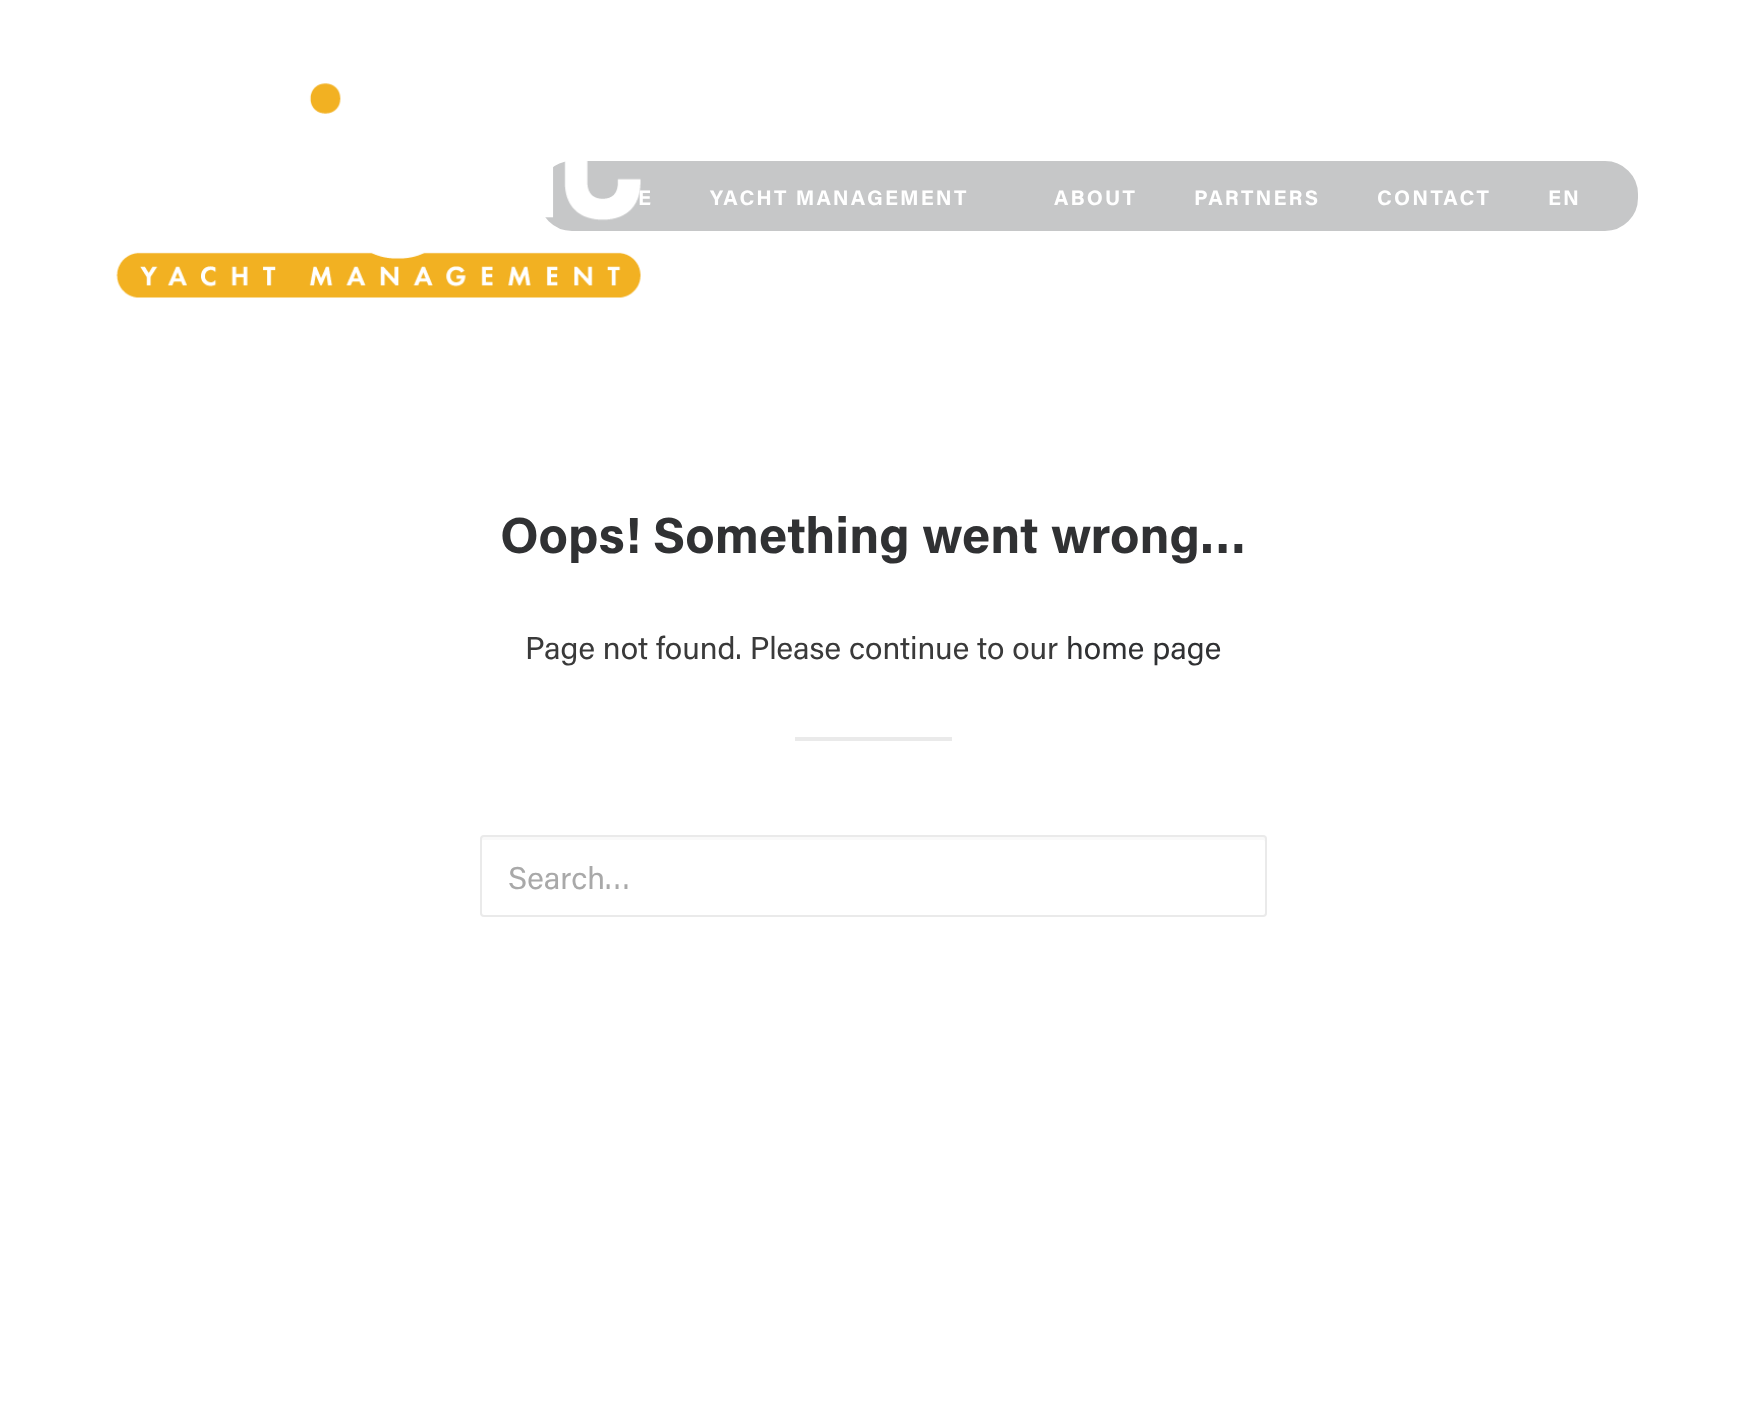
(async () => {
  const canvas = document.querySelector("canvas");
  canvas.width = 1745;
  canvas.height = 1425;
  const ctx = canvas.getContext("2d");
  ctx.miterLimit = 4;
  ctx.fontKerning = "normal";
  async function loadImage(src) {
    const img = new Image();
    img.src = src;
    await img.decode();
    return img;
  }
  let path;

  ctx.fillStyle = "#ffffff";
  ctx.fillRect(0, 0, 1745, 1425);
  ctx.fillStyle = "#c6c7c8";
  ctx.beginPath();
  ctx.roundRect(538, 160, 1101, 72, 34);
  ctx.fill();
  ctx.strokeStyle = "#ffffff";
  ctx.lineWidth = 2;
  ctx.stroke();
  ctx.drawImage(await loadImage("img/1.png"), 116, 83, 525, 215);
  ctx.fillStyle = "#eaeaea";
  ctx.fillRect(795, 737, 157, 4);
  ctx.fillStyle = "#f9f9f9";
  path = new Path2D("M483 840H1264L1265 842V838L1264 837H483C480 837 481 840 481 842C481 841 482 840 483 840Z");
  ctx.fill(path);
  ctx.beginPath();
  ctx.roundRect(481, 836, 785, 80, 3);
  ctx.strokeStyle = "#eaeaea";
  ctx.stroke();
  ctx.letterSpacing = "2.1px";
  ctx.font = "bold 21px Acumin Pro";
  ctx.fillStyle = "#ffffff";
  for (const [text, x, y] of [
    ["E", 638, 205],
    ["YACHT MANAGEMENT", 710, 205],
    ["ABOUT", 1054, 205],
    ["PARTNERS", 1194, 205],
    ["CONTACT", 1377, 205],
    ["EN", 1548, 205],
  ]) {
    ctx.fillText(text, x, y);
  }
  ctx.letterSpacing = "0px";
  ctx.font = "bold 50.75px Acumin Pro";
  ctx.fillStyle = "#303133";
  ctx.fillText("Oops! Something went wrong…", 500, 553);
  ctx.font = "31.5px Acumin Pro";
  ctx.fillStyle = "#3a3a3a";
  ctx.fillText("Page not found. Please continue to our", 525, 659);
  ctx.fillStyle = "#303133";
  ctx.fillText("home page", 1066, 659);
  ctx.fillStyle = "#a9a9a9";
  ctx.fillText("Search…", 508, 889);
})();
